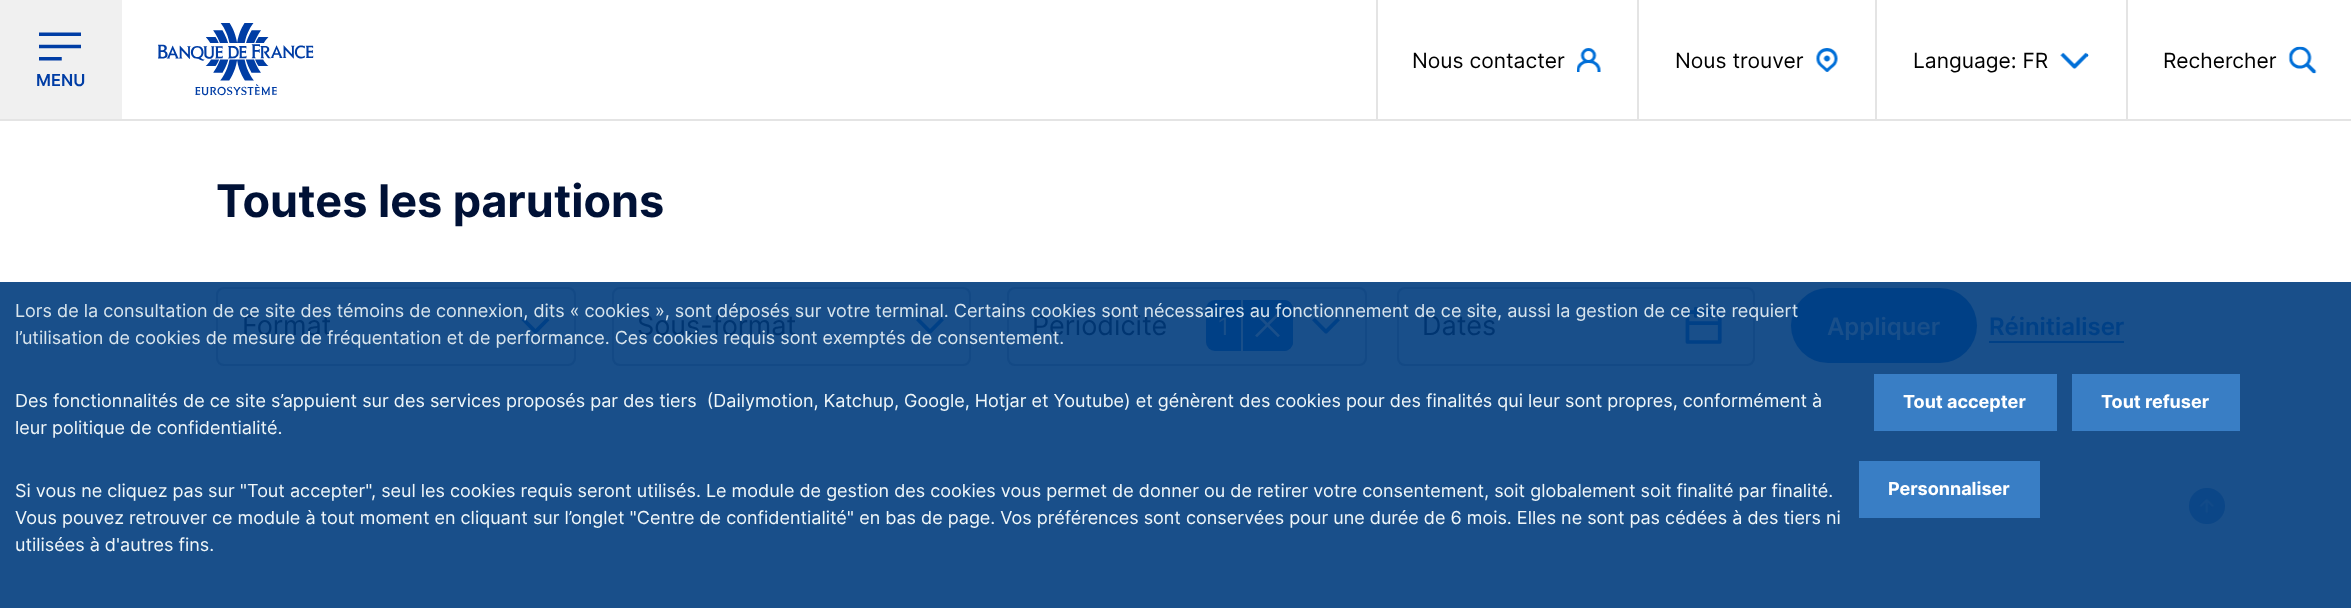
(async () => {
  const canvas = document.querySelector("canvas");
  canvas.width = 2351;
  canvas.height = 608;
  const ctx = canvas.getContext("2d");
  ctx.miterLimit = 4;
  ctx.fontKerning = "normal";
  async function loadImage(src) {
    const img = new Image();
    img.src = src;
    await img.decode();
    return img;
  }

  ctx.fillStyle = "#ffffff";
  ctx.fillRect(0, 0, 2351, 608);
  for (const [x, y, w, h, color] of [
    [0, 282, 2351, 326, "#194f8a"],
    [0, 119, 2351, 2, "#e4e4e4"],
    [1376, 0, 2, 119, "#e4e4e4"],
  ]) {
    ctx.fillStyle = color;
    ctx.fillRect(x, y, w, h);
  }
  ctx.drawImage(await loadImage("img/1.png"), 1577, 48, 24, 24);
  ctx.fillRect(1637, 0, 2, 119);
  ctx.drawImage(await loadImage("img/2.png"), 1816, 48, 22, 24);
  ctx.fillRect(1875, 0, 2, 119);
  ctx.drawImage(await loadImage("img/3.png"), 2060, 52, 29, 17);
  ctx.fillRect(2126, 0, 2, 119);
  ctx.drawImage(await loadImage("img/4.png"), 2288, 46, 29, 28);
  ctx.fillStyle = "#f0f0f0";
  ctx.fillRect(0, 0, 122, 119);
  ctx.drawImage(await loadImage("img/5.png"), 39, 32, 42, 29);
  ctx.drawImage(await loadImage("img/6.png"), 158, 23, 156, 73);
  ctx.beginPath();
  ctx.roundRect(217, 288, 358, 77, 7);
  ctx.strokeStyle = "#134985";
  ctx.lineWidth = 2;
  ctx.stroke();
  ctx.drawImage(await loadImage("img/7.png"), 521, 317, 29, 17);
  ctx.beginPath();
  ctx.roundRect(613, 288, 357, 77, 7);
  ctx.stroke();
  ctx.drawImage(await loadImage("img/8.png"), 916, 317, 28, 17);
  ctx.beginPath();
  ctx.roundRect(1008, 288, 358, 77, 7);
  ctx.stroke();
  ctx.fillStyle = "#004086";
  ctx.beginPath();
  ctx.roundRect(1206, 300, 87, 51, 9);
  ctx.fill();
  ctx.beginPath();
  ctx.roundRect(1241, 300, 52, 51, [0, 9, 9, 0]);
  ctx.fill();
  ctx.fillStyle = "#194f8a";
  ctx.fillRect(1241, 300, 2, 51);
  ctx.drawImage(await loadImage("img/9.png"), 1255, 312, 25, 26);
  ctx.drawImage(await loadImage("img/8.png"), 1312, 317, 28, 17);
  ctx.drawImage(await loadImage("img/10.png"), 1685, 306, 37, 38);
  ctx.beginPath();
  ctx.roundRect(1398, 288, 356, 77, 7);
  ctx.stroke();
  ctx.fillStyle = "#004086";
  ctx.beginPath();
  ctx.roundRect(1791, 288, 186, 75, 37.5);
  ctx.fill();
  ctx.fillRect(1989, 341, 135, 2);
  ctx.fillStyle = "#0b4687";
  ctx.beginPath();
  ctx.arc(2207, 506, 18, 0, Math.PI * 2);
  ctx.fill();
  ctx.drawImage(await loadImage("img/11.png"), 2199, 498, 15, 16);
  for (const [x, y, w, h, color] of [
    [1874, 374, 183, 57, "#397ec5"],
    [2072, 374, 168, 57, "#397ec5"],
    [1859, 461, 181, 57, "#397ec5"],
  ]) {
    ctx.fillStyle = color;
    ctx.fillRect(x, y, w, h);
  }
  ctx.font = "21px Inter";
  ctx.fillStyle = "#000000";
  for (const [text, x, y] of [
    ["Nous contacter", 1412, 68],
    ["Nous trouver", 1675, 68],
    ["Language: FR", 1913, 68],
    ["Rechercher", 2163, 68],
  ]) {
    ctx.fillText(text, x, y);
  }
  ctx.font = "600 16.5px Inter";
  ctx.fillStyle = "#003da5";
  ctx.fillText("MENU", 36, 86);
  ctx.font = "bold 45px Inter";
  ctx.fillStyle = "#001136";
  ctx.fillText("Toutes les parutions", 216, 217);
  ctx.font = "27px Inter";
  ctx.fillStyle = "#003571";
  for (const [text, x, y] of [
    ["Format", 242, 335],
    ["Sous-format", 637, 335],
    ["Périodicité", 1032, 335],
  ]) {
    ctx.fillText(text, x, y);
  }
  ctx.font = "24px Inter";
  ctx.fillStyle = "#194f8a";
  ctx.fillText("1", 1218, 335);
  ctx.font = "27px Inter";
  ctx.fillStyle = "#003571";
  ctx.fillText("Dates", 1422, 335);
  ctx.font = "600 24px Inter";
  ctx.fillStyle = "#194f8a";
  ctx.fillText("Appliquer", 1827, 335);
  ctx.fillStyle = "#004086";
  ctx.fillText("Réinitialiser", 1989, 335);
  ctx.font = "18px Inter";
  ctx.fillStyle = "#d9e5ed";
  ctx.fillText("Lors de la consultation de ce site des témoins de connexion, dits « cookies », sont déposés sur votre terminal. Certains cookies sont nécessaires au fonctionnement de ce site, aussi la gestion de ce site requiert", 15, 317);
  ctx.fillText("l’utilisation de cookies de mesure de fréquentation et de performance. Ces cookies requis sont exemptés de consentement.", 15, 344);
  ctx.fillStyle = "#f0f7f9";
  for (const [text, x, y] of [
    ["Des fonctionnalités de ce site s’appuient sur des services proposés par des tiers  (Dailymotion, Katchup, Google, Hotjar et Youtube) et génèrent des cookies pour des finalités qui leur sont propres, conformément à", 15, 407],
    ["leur politique de confidentialité.", 15, 434],
    ["Si vous ne cliquez pas sur \"Tout accepter\", seul les cookies requis seront utilisés. Le module de gestion des cookies vous permet de donner ou de retirer votre consentement, soit globalement soit finalité par finalité.", 15, 497],
    ["Vous pouvez retrouver ce module à tout moment en cliquant sur l’onglet \"Centre de confidentialité\" en bas de page. Vos préférences sont conservées pour une durée de 6 mois. Elles ne sont pas cédées à des tiers ni", 15, 524],
    ["utilisées à d'autres fins.", 15, 551],
  ]) {
    ctx.fillText(text, x, y);
  }
  ctx.font = "bold 18px Inter";
  ctx.fillStyle = "#ffffff";
  for (const [text, x, y] of [
    ["Tout accepter", 1903, 408],
    ["Tout refuser", 2101, 408],
    ["Personnaliser", 1888, 495],
  ]) {
    ctx.fillText(text, x, y);
  }
})();
